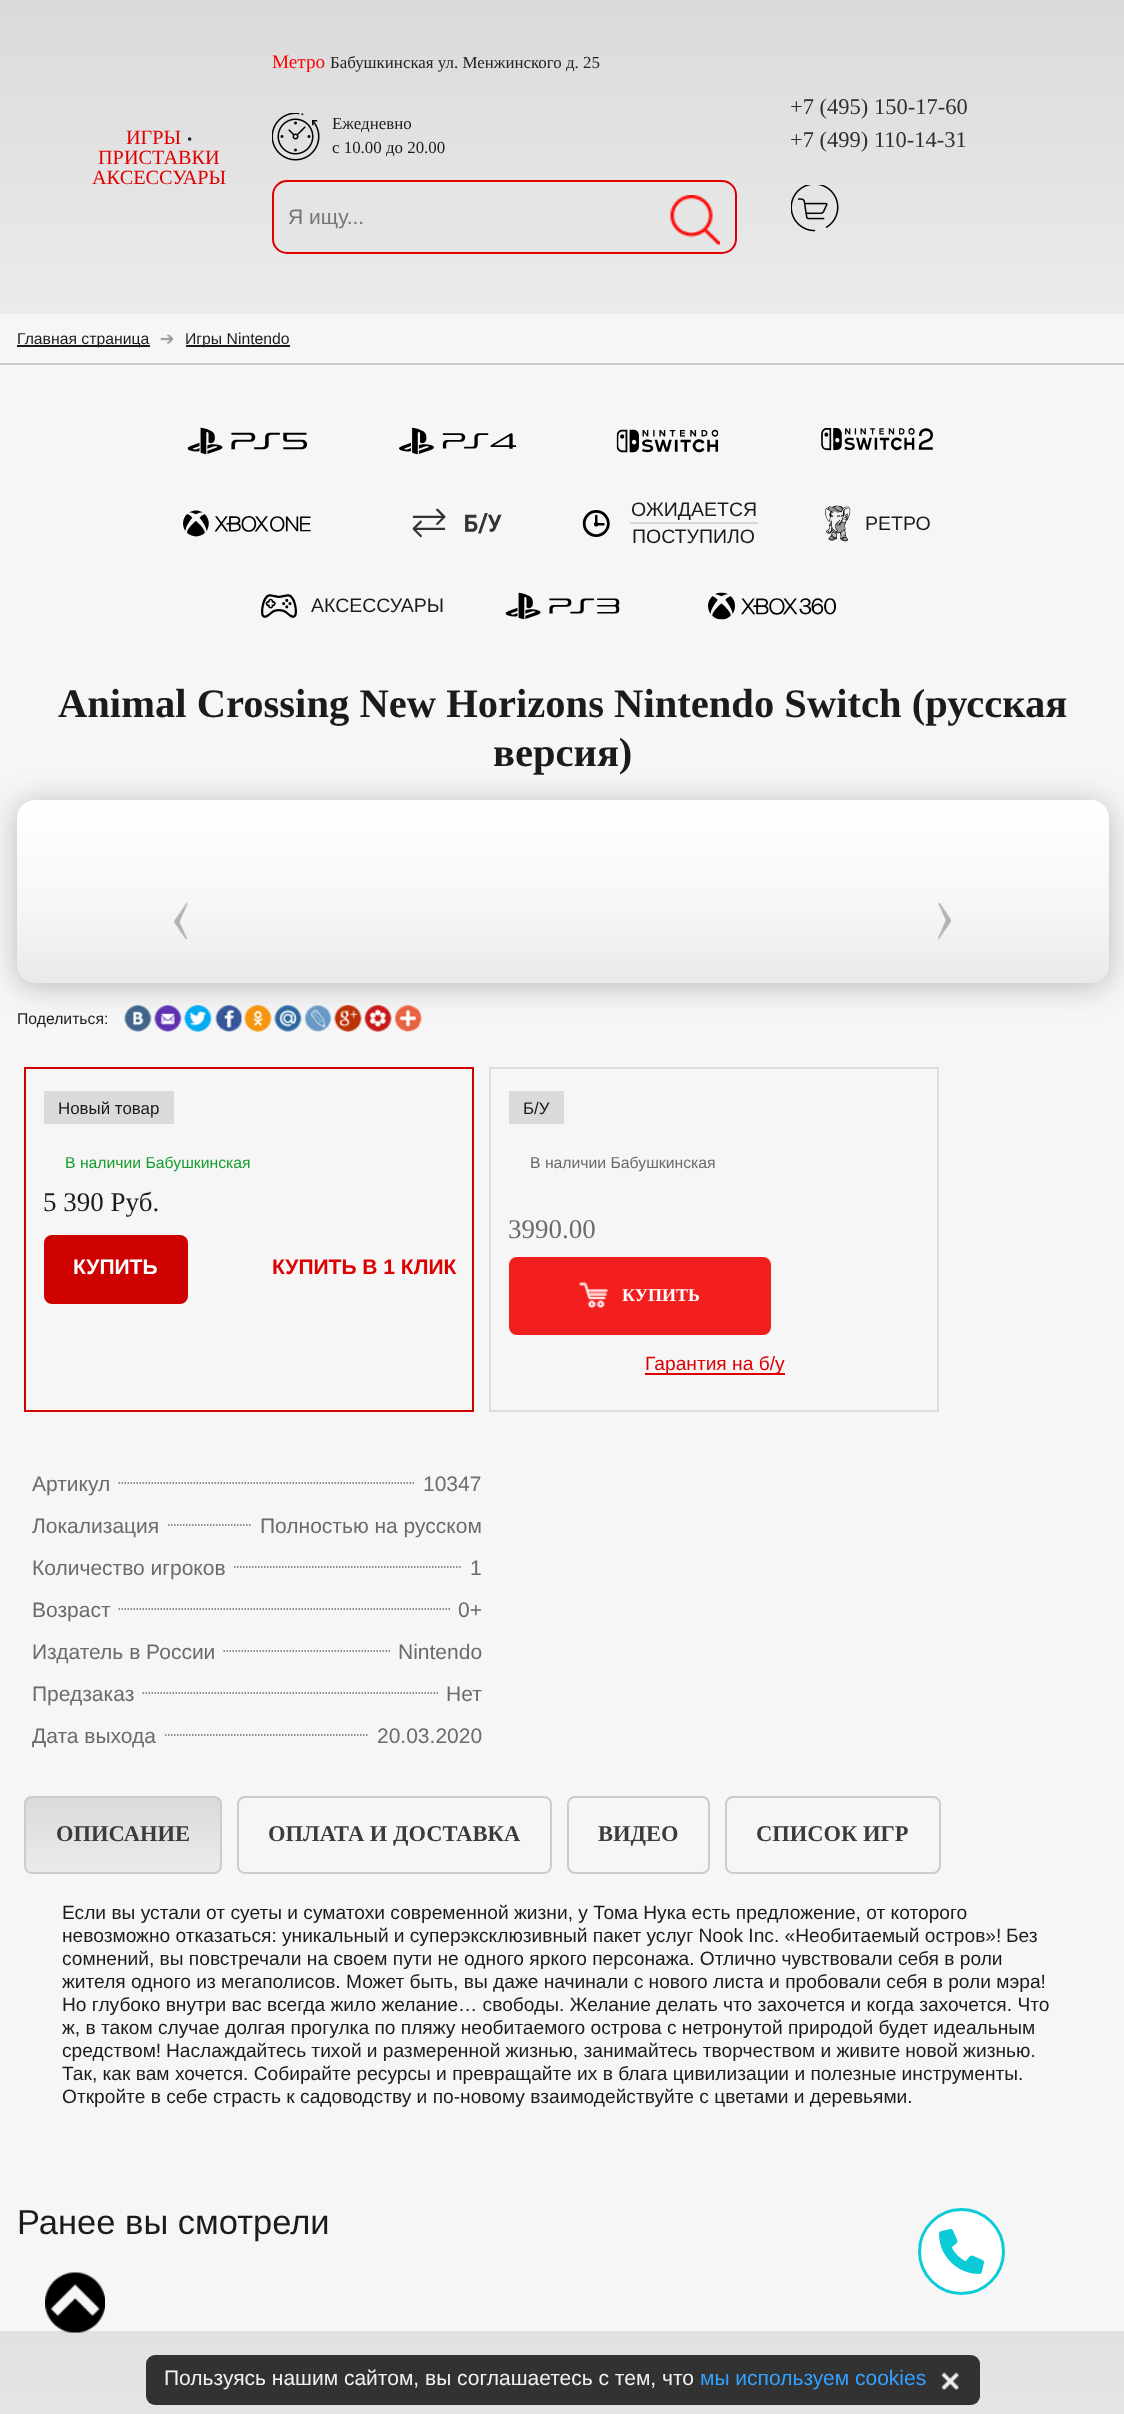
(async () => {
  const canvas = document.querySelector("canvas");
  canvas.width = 1124;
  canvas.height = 2414;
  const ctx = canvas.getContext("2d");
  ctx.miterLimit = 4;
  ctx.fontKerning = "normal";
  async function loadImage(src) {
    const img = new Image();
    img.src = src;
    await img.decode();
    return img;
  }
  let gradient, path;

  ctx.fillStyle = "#ffffff";
  ctx.fillRect(0, 0, 1124, 2414);
  gradient = ctx.createLinearGradient(563, 0, 563, 314);
  gradient.addColorStop(0, "#dbdada");
  gradient.addColorStop(1, "#ecebeb");
  ctx.fillStyle = gradient;
  ctx.fillRect(0, 0, 1124, 314);
  ctx.drawImage(await loadImage("img/1.png"), 272, 113, 48, 48);
  ctx.fillStyle = "#e6e5e5";
  ctx.beginPath();
  ctx.roundRect(273, 181, 463, 72, 14);
  ctx.fill();
  ctx.strokeStyle = "#de0000";
  ctx.lineWidth = 2;
  ctx.stroke();
  ctx.drawImage(await loadImage("img/2.png"), 670, 195, 50, 50);
  ctx.drawImage(await loadImage("img/3.png"), 791, 185, 48, 47);
  for (const [x, y, w, h, color] of [
    [0, 314, 1124, 2017, "#f6f6f6"],
    [0, 363, 1124, 2, "#c9c9c9"],
    [17, 345, 133, 2, "#1b1b1b"],
  ]) {
    ctx.fillStyle = color;
    ctx.fillRect(x, y, w, h);
  }
  ctx.drawImage(await loadImage("img/4.png"), 160, 334, 14, 10);
  ctx.fillRect(186, 345, 104, 2);
  ctx.drawImage(await loadImage("img/5.png"), 187, 427, 121, 28);
  ctx.drawImage(await loadImage("img/6.png"), 399, 427, 117, 28);
  ctx.drawImage(await loadImage("img/7.png"), 616, 429, 103, 24);
  ctx.drawImage(await loadImage("img/8.png"), 821, 428, 112, 23);
  ctx.drawImage(await loadImage("img/9.png"), 183, 510, 128, 27);
  ctx.drawImage(await loadImage("img/10.png"), 412, 508, 90, 30);
  ctx.drawImage(await loadImage("img/11.png"), 582, 510, 28, 27);
  ctx.fillStyle = "#d6d6d6";
  ctx.fillRect(630, 522, 128, 2);
  ctx.drawImage(await loadImage("img/12.png"), 825, 505, 26, 37);
  ctx.drawImage(await loadImage("img/13.png"), 261, 594, 36, 24);
  ctx.drawImage(await loadImage("img/14.png"), 505, 592, 115, 28);
  ctx.drawImage(await loadImage("img/15.png"), 708, 592, 129, 28);
  ctx.fillStyle = "rgba(94, 94, 94, 0.4)";
  ctx.filter = "blur(15px)";
  ctx.beginPath();
  ctx.roundRect(17, 803, 1092, 183, 18);
  ctx.fill();
  ctx.filter = "none";
  gradient = ctx.createLinearGradient(563, 800, 563, 983);
  gradient.addColorStop(0, "#ffffff");
  gradient.addColorStop(0.6, "#f6f6f6");
  gradient.addColorStop(1, "#e9e9e9");
  ctx.fillStyle = gradient;
  ctx.beginPath();
  ctx.roundRect(17, 800, 1092, 183, 18);
  ctx.fill();
  ctx.drawImage(await loadImage("img/16.png"), 174, 903, 14, 36);
  ctx.drawImage(await loadImage("img/17.png"), 938, 903, 13, 36);
  ctx.drawImage(await loadImage("img/18.png"), 124, 1005, 28, 27);
  ctx.drawImage(await loadImage("img/19.png"), 154, 1005, 28, 27);
  ctx.drawImage(await loadImage("img/20.png"), 184, 1005, 28, 27);
  ctx.drawImage(await loadImage("img/21.png"), 215, 1005, 27, 27);
  ctx.drawImage(await loadImage("img/22.png"), 244, 1005, 28, 27);
  ctx.drawImage(await loadImage("img/23.png"), 274, 1005, 28, 27);
  ctx.drawImage(await loadImage("img/24.png"), 304, 1005, 28, 27);
  ctx.drawImage(await loadImage("img/25.png"), 334, 1005, 28, 27);
  ctx.drawImage(await loadImage("img/26.png"), 364, 1005, 28, 27);
  ctx.drawImage(await loadImage("img/27.png"), 394, 1005, 28, 27);
  ctx.strokeStyle = "#d10000";
  ctx.strokeRect(25, 1068, 448, 343);
  ctx.fillStyle = "#dadada";
  ctx.fillRect(44, 1091, 130, 33);
  ctx.fillStyle = "#ce0101";
  ctx.beginPath();
  ctx.roundRect(44, 1235, 144, 69, 8);
  ctx.fill();
  ctx.strokeStyle = "#dddddd";
  ctx.strokeRect(490, 1068, 448, 343);
  ctx.fillStyle = "#dadada";
  ctx.fillRect(509, 1091, 55, 33);
  ctx.fillStyle = "#f31e1e";
  ctx.beginPath();
  ctx.roundRect(509, 1257, 262, 78, 8);
  ctx.fill();
  ctx.drawImage(await loadImage("img/28.png"), 579, 1282, 29, 26);
  ctx.fillStyle = "#de0000";
  ctx.fillRect(645, 1373, 140, 2);
  path = new Path2D("M118.5 1483H415.5");
  ctx.strokeStyle = "#6b6b6b";
  ctx.lineWidth = 1.5;
  ctx.setLineDash([1.5, 1.5]);
  ctx.stroke(path);
  path = new Path2D("M168 1525H252");
  ctx.stroke(path);
  path = new Path2D("M234 1567H462");
  ctx.stroke(path);
  path = new Path2D("M118.5 1609H450");
  ctx.stroke(path);
  path = new Path2D("M223.5 1651H390");
  ctx.stroke(path);
  path = new Path2D("M142.5 1693H438");
  ctx.stroke(path);
  path = new Path2D("M165 1735H369");
  ctx.stroke(path);
  ctx.save();
  ctx.beginPath();
  ctx.roundRect(24, 1796, 198, 78, 8);
  ctx.clip();
  gradient = ctx.createLinearGradient(123, 1797, 123, 1872);
  gradient.addColorStop(0, "#dbdada");
  gradient.addColorStop(1, "#ecebeb");
  ctx.fillStyle = gradient;
  ctx.fillRect(24, 1797, 198, 75);
  ctx.restore();
  ctx.beginPath();
  ctx.roundRect(25, 1797, 196, 76, 7);
  ctx.strokeStyle = "#cccccc";
  ctx.lineWidth = 2;
  ctx.setLineDash([]);
  ctx.stroke();
  ctx.beginPath();
  ctx.roundRect(238, 1797, 313, 76, 7);
  ctx.stroke();
  ctx.beginPath();
  ctx.roundRect(568, 1797, 141, 76, 7);
  ctx.stroke();
  ctx.beginPath();
  ctx.roundRect(726, 1797, 214, 76, 7);
  ctx.stroke();
  gradient = ctx.createLinearGradient(563, 2331, 563, 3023);
  gradient.addColorStop(0, "#e1e1e1");
  gradient.addColorStop(0.2, "#e8e8e8");
  gradient.addColorStop(1, "#d0d0d0");
  ctx.fillStyle = gradient;
  ctx.fillRect(0, 2331, 1124, 83);
  ctx.fillStyle = "#ffffff";
  ctx.beginPath();
  ctx.arc(961.5, 2251.5, 42, 0, Math.PI * 2);
  ctx.fill();
  ctx.strokeStyle = "#0acbd7";
  ctx.lineWidth = 3;
  ctx.stroke();
  ctx.drawImage(await loadImage("img/29.png"), 939, 2229, 45, 45);
  ctx.drawImage(await loadImage("img/30.png"), 45, 2272, 60, 61);
  ctx.fillStyle = "rgba(0, 0, 0, 0.78)";
  ctx.beginPath();
  ctx.roundRect(146, 2355, 834, 50, 9);
  ctx.fill();
  ctx.drawImage(await loadImage("img/31.png"), 941, 2372, 18, 18);
  ctx.font = "20.25px Liberation Serif";
  ctx.fillStyle = "#de0000";
  ctx.fillText("ИГРЫ", 126, 144);
  ctx.font = "15px Liberation Serif";
  ctx.fillStyle = "#222222";
  ctx.fillText("•", 187, 144);
  ctx.font = "20.25px Liberation Serif";
  ctx.fillStyle = "#de0000";
  ctx.fillText("ПРИСТАВКИ", 98, 164);
  ctx.fillText("АКСЕССУАРЫ", 92, 184);
  ctx.font = "19.18px Liberation Serif";
  ctx.fillStyle = "#ff0000";
  ctx.fillText("Метро", 272, 68);
  ctx.font = "16.9px Liberation Serif";
  ctx.fillStyle = "#222222";
  ctx.fillText("Бабушкинская ул. Менжинского д. 25", 330, 68);
  ctx.fillStyle = "#1b1b1b";
  ctx.fillText("Ежедневно", 332, 129);
  ctx.fillText("с 10.00 до 20.00", 332, 153);
  ctx.font = "21px Liberation Sans";
  ctx.fillStyle = "#757575";
  ctx.fillText("Я ищу...", 288, 224);
  ctx.font = "22.5px Liberation Serif";
  ctx.fillStyle = "#2e2e2e";
  ctx.fillText("+7 (495) 150-17-60", 790, 114);
  ctx.fillText("+7 (499) 110-14-31", 790, 147);
  ctx.font = "15.75px Liberation Sans";
  ctx.fillStyle = "#1b1b1b";
  ctx.fillText("Главная страница", 17, 344);
  ctx.fillText("Игры Nintendo", 185, 344);
  ctx.font = "19.5px Liberation Sans";
  for (const [text, x, y] of [
    ["ОЖИДАЕТСЯ", 631, 516],
    ["ПОСТУПИЛО", 632, 543],
    ["РЕТРО", 865, 530],
    ["АКСЕССУАРЫ", 311, 612],
  ]) {
    ctx.fillText(text, x, y);
  }
  ctx.font = "bold 40.6px Liberation Serif";
  ctx.fillText("Animal Crossing New Horizons Nintendo Switch (русская", 58, 717);
  ctx.fillText("версия)", 493, 766);
  ctx.font = "15.75px Liberation Sans";
  ctx.fillText("Поделиться:", 17, 1024);
  ctx.font = "16.9px Liberation Sans";
  ctx.fillText("Новый товар", 58, 1114);
  ctx.font = "15.75px Liberation Sans";
  ctx.fillStyle = "#189d2c";
  ctx.fillText("В наличии Бабушкинская", 65, 1168);
  ctx.font = "27px Liberation Serif";
  ctx.fillStyle = "#1b1b1b";
  ctx.fillText("5 390 Руб.", 43, 1211);
  ctx.font = "bold 21px Liberation Sans";
  ctx.fillStyle = "#ffffff";
  ctx.fillText("КУПИТЬ", 73, 1274);
  ctx.fillStyle = "#de0000";
  ctx.fillText("КУПИТЬ В 1 КЛИК", 272, 1274);
  ctx.font = "16.9px Liberation Sans";
  ctx.fillStyle = "#1b1b1b";
  ctx.fillText("Б/У", 523, 1114);
  ctx.font = "15.75px Liberation Sans";
  ctx.fillStyle = "#6b6b6b";
  ctx.fillText("В наличии Бабушкинская", 530, 1168);
  ctx.font = "27px Liberation Serif";
  ctx.fillText("3990.00", 508, 1238);
  ctx.font = "bold 18px Liberation Serif";
  ctx.fillStyle = "#ffffff";
  ctx.fillText("КУПИТЬ", 622, 1301);
  ctx.font = "19.18px Liberation Sans";
  ctx.fillStyle = "#de0000";
  ctx.fillText("Гарантия на б/у", 645, 1370);
  ctx.font = "21px Liberation Sans";
  ctx.fillStyle = "#6b6b6b";
  for (const [text, x, y] of [
    ["Артикул", 32, 1491],
    ["10347", 423, 1491],
    ["Локализация", 32, 1533],
    ["Полностью на русском", 260, 1533],
    ["Количество игроков", 32, 1575],
    ["1", 470, 1575],
    ["Возраст", 32, 1617],
    ["0+", 458, 1617],
    ["Издатель в России", 32, 1659],
    ["Nintendo", 398, 1659],
    ["Предзаказ", 32, 1701],
    ["Нет", 446, 1701],
    ["Дата выхода", 32, 1743],
    ["20.03.2020", 377, 1743],
  ]) {
    ctx.fillText(text, x, y);
  }
  ctx.font = "bold 22.5px Liberation Serif";
  ctx.fillStyle = "#3b3b3b";
  for (const [text, x, y] of [
    ["ОПИСАНИЕ", 56, 1841],
    ["ОПЛАТА И ДОСТАВКА", 268, 1841],
    ["ВИДЕО", 598, 1841],
    ["СПИСОК ИГР", 756, 1841],
  ]) {
    ctx.fillText(text, x, y);
  }
  ctx.font = "19.18px Liberation Sans";
  ctx.fillStyle = "#1b1b1b";
  ctx.fillText("Если вы устали от суеты и суматохи современной жизни, у Тома Нука есть предложение, от которого", 62, 1919);
  ctx.wordSpacing = "-0.1px";
  ctx.fillText("невозможно отказаться: уникальный и суперэксклюзивный пакет услуг Nook Inc. «Необитаемый остров»!", 62, 1942);
  ctx.wordSpacing = "0px";
  for (const [text, x, y] of [
    ["Без", 1006, 1942],
    ["сомнений, вы повстречали на своем пути не одного яркого персонажа. Отлично чувствовали себя в роли", 62, 1965],
    ["жителя одного из мегаполисов. Может быть, вы даже начинали с нового листа и пробовали себя в роли мэра!", 62, 1988],
    ["Но глубоко внутри вас всегда жило желание… свободы. Желание делать что захочется и когда захочется. Что", 62, 2011],
    ["ж, в таком случае долгая прогулка по пляжу необитаемого острова с нетронутой природой будет идеальным", 62, 2034],
    ["средством!", 62, 2057],
  ]) {
    ctx.fillText(text, x, y);
  }
  ctx.wordSpacing = "-0.1px";
  ctx.fillText("Наслаждайтесь тихой и размеренной жизнью, занимайтесь творчеством и живите новой жизнью.", 166, 2057);
  ctx.wordSpacing = "0px";
  ctx.fillText("Так, как вам хочется. Собирайте ресурсы и превращайте их в блага цивилизации и полезные инструменты.", 62, 2080);
  ctx.fillText("Откройте в себе страсть к садоводству и по-новому взаимодействуйте с цветами и деревьями.", 62, 2103);
  ctx.font = "34.5px Liberation Sans";
  ctx.fillText("Ранее вы смотрели", 17, 2234);
  ctx.font = "21px Liberation Sans";
  ctx.fillStyle = "#f1f1f1";
  ctx.fillText("Пользуясь нашим сайтом, вы соглашаетесь с тем, что", 164, 2385);
  ctx.fillStyle = "#34a0ff";
  ctx.fillText("мы используем cookies", 700, 2385);
})();
